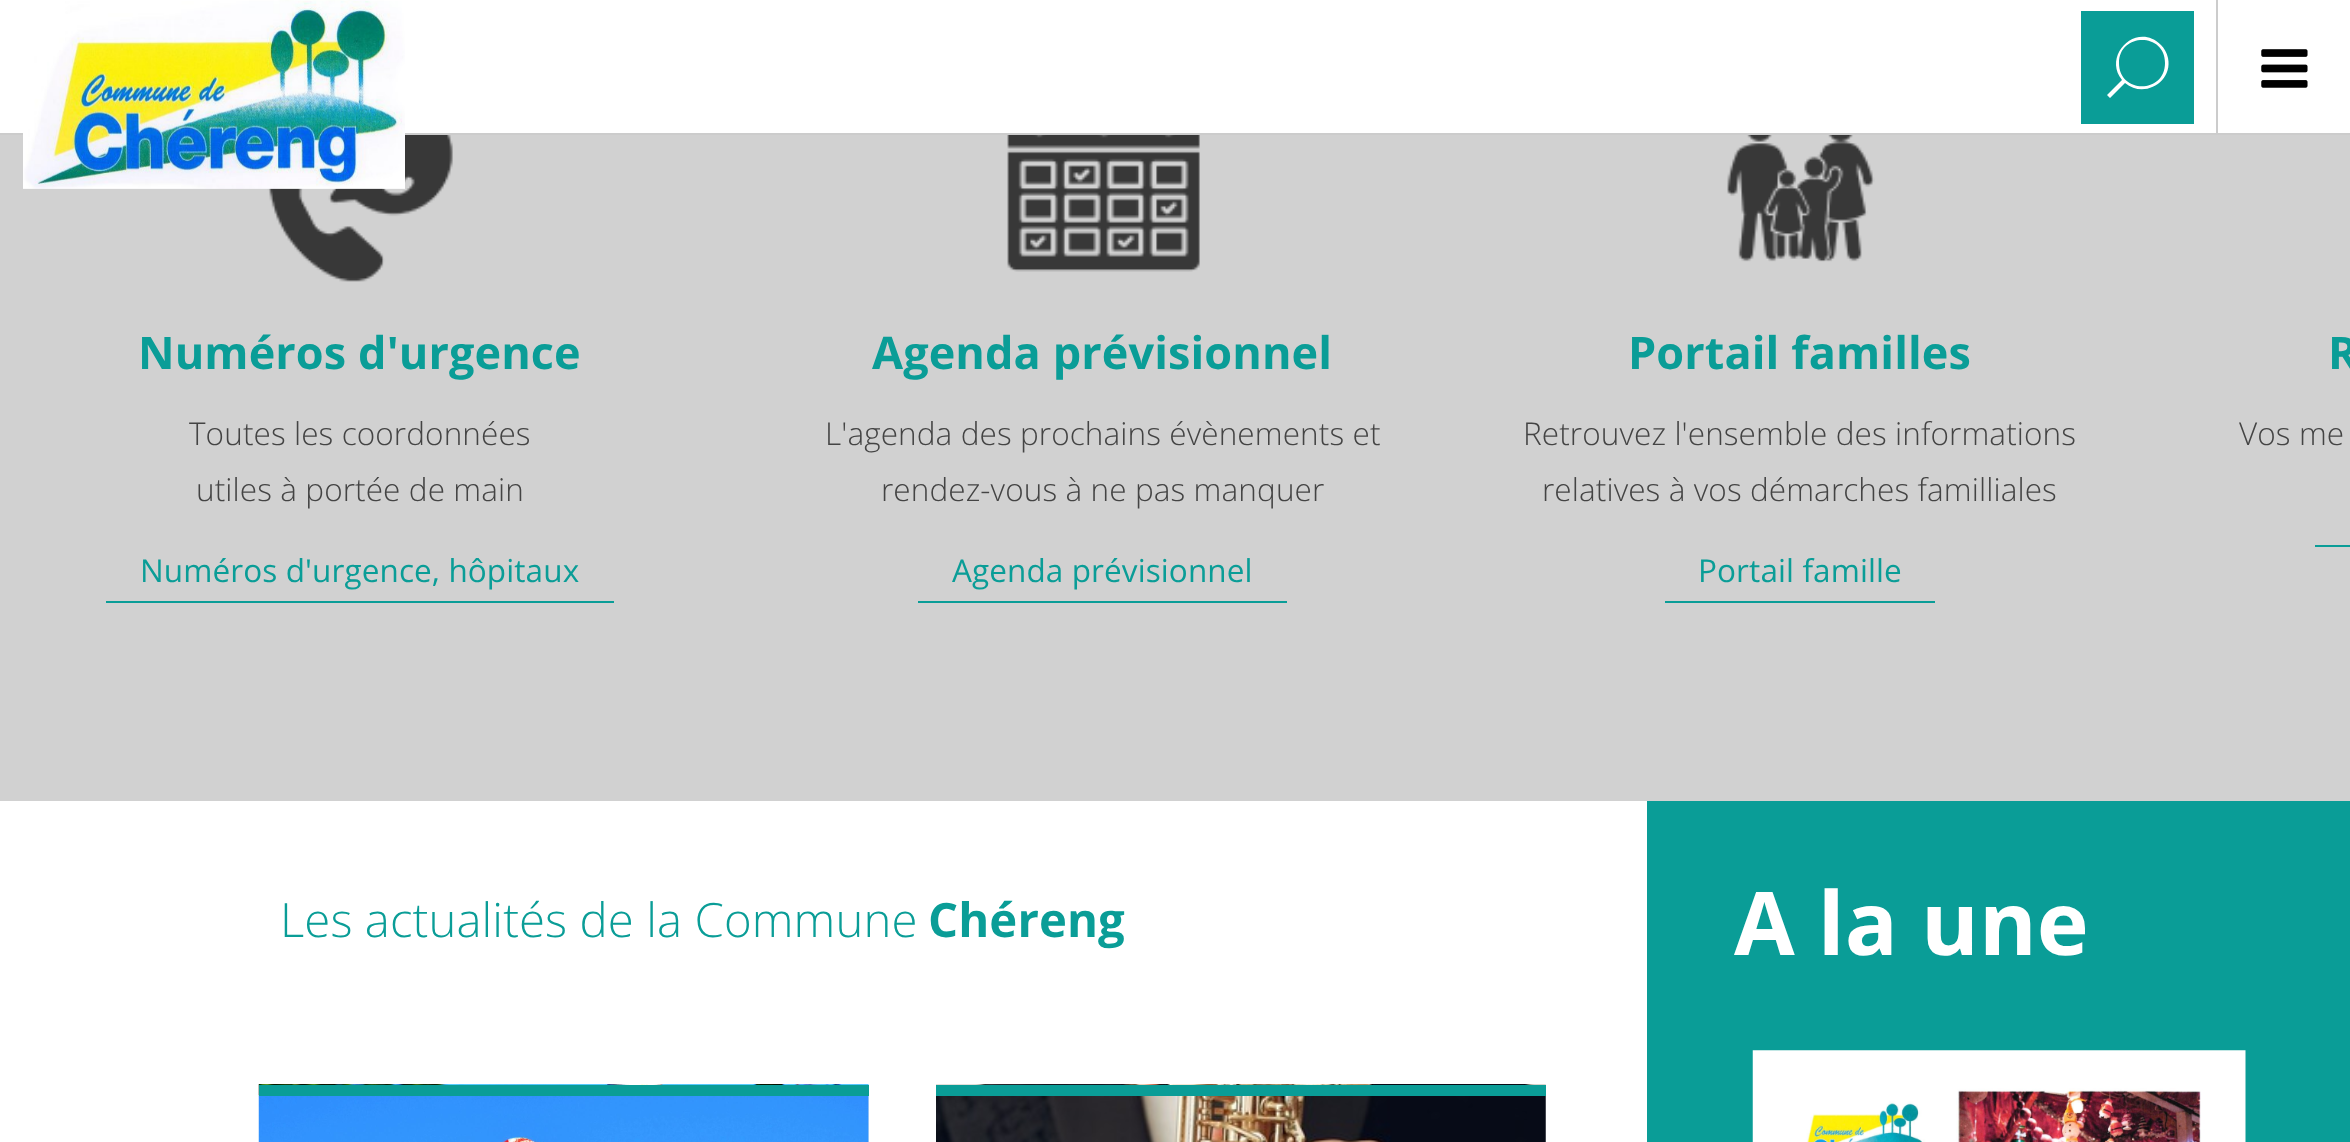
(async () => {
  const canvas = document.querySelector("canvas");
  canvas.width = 2350;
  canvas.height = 1142;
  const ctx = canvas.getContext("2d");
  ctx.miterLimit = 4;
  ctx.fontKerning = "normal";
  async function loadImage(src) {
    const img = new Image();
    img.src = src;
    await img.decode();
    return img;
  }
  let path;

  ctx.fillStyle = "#ffffff";
  ctx.fillRect(0, 0, 2350, 1142);
  ctx.fillStyle = "#cccccc";
  ctx.fillRect(0, 133, 2350, 2);
  ctx.fillStyle = "#d1d1d1";
  ctx.fillRect(0, 135, 2350, 666);
  ctx.drawImage(await loadImage("img/3.png"), 267, 135, 186, 147);
  ctx.drawImage(await loadImage("img/1.png"), 23, 0, 382, 189);
  ctx.fillStyle = "#0a9d97";
  ctx.fillRect(2081, 11, 113, 113);
  ctx.fillStyle = "#ffffff";
  path = new Path2D("M2122 80C2102 55 2137 21 2161 45C2164 48 2167 53 2168 58C2173 82 2144 99 2125 83L2110 98L2107 95ZM2119 63C2119 94 2165 94 2165 63C2165 32 2119 33 2119 63Z");
  ctx.fill(path);
  ctx.fillStyle = "#cccccc";
  ctx.fillRect(2216, 0, 2, 135);
  ctx.drawImage(await loadImage("img/2.png"), 2261, 49, 47, 39);
  ctx.fillStyle = "#0a9d97";
  ctx.fillRect(106, 601, 508, 2);
  ctx.drawImage(await loadImage("img/4.png"), 1007, 135, 193, 137);
  ctx.fillRect(918, 601, 369, 2);
  ctx.drawImage(await loadImage("img/5.png"), 1727, 135, 148, 127);
  for (const [x, y, w, h, color] of [
    [1665, 601, 270, 2, "#0a9d97"],
    [2315, 545, 35, 2, "#0a9d97"],
    [868, 1096, 1, 46, "#eeeeee"],
  ]) {
    ctx.fillStyle = color;
    ctx.fillRect(x, y, w, h);
  }
  ctx.drawImage(await loadImage("img/6.png"), 258, 1084, 611, 58);
  ctx.fillStyle = "#0a9d97";
  ctx.fillRect(259, 1085, 610, 11);
  ctx.drawImage(await loadImage("img/7.png"), 936, 1084, 610, 58);
  ctx.fillRect(936, 1085, 610, 11);
  ctx.fillRect(1647, 801, 703, 341);
  ctx.drawImage(await loadImage("img/8.png"), 1752, 1050, 494, 92);
  ctx.letterSpacing = "0.1px";
  ctx.font = "bold 45px Open Sans";
  ctx.fillText("Numéros d'urgence", 138, 369);
  ctx.font = "300 31.5px Open Sans";
  ctx.fillStyle = "#444444";
  ctx.fillText("Toutes les coordonnées", 189, 445);
  ctx.fillText("utiles à portée de main", 196, 501);
  ctx.font = "31.5px Open Sans";
  ctx.fillStyle = "#0a9d97";
  ctx.fillText("Numéros d'urgence, hôpitaux", 140, 582);
  ctx.font = "bold 45px Open Sans";
  ctx.fillText("Agenda prévisionnel", 872, 369);
  ctx.font = "300 31.5px Open Sans";
  ctx.fillStyle = "#444444";
  ctx.fillText("L'agenda des prochains évènements et", 825, 445);
  ctx.fillText("rendez-vous à ne pas manquer", 881, 501);
  ctx.font = "31.5px Open Sans";
  ctx.fillStyle = "#0a9d97";
  ctx.fillText("Agenda prévisionnel", 952, 582);
  ctx.font = "bold 45px Open Sans";
  ctx.fillText("Portail familles", 1628, 369);
  ctx.font = "300 31.5px Open Sans";
  ctx.fillStyle = "#444444";
  ctx.fillText("Retrouvez l'ensemble des informations", 1523, 445);
  ctx.fillText("relatives à vos démarches familliales", 1542, 501);
  ctx.font = "31.5px Open Sans";
  ctx.fillStyle = "#0a9d97";
  ctx.fillText("Portail famille", 1698, 582);
  ctx.font = "bold 45px Open Sans";
  ctx.fillText("R", 2328, 369);
  ctx.font = "300 31.5px Open Sans";
  ctx.fillStyle = "#444444";
  ctx.fillText("Vos me", 2239, 445);
  ctx.font = "300 47.25px Open Sans";
  ctx.fillStyle = "#0a9d97";
  ctx.fillText("Les actualités de la Commune", 280, 937);
  ctx.font = "bold 47.25px Open Sans";
  ctx.fillText("Chéreng", 928, 937);
  ctx.font = "bold 88px Open Sans";
  ctx.fillStyle = "#ffffff";
  ctx.fillText("A la une", 1734, 955);
})();
